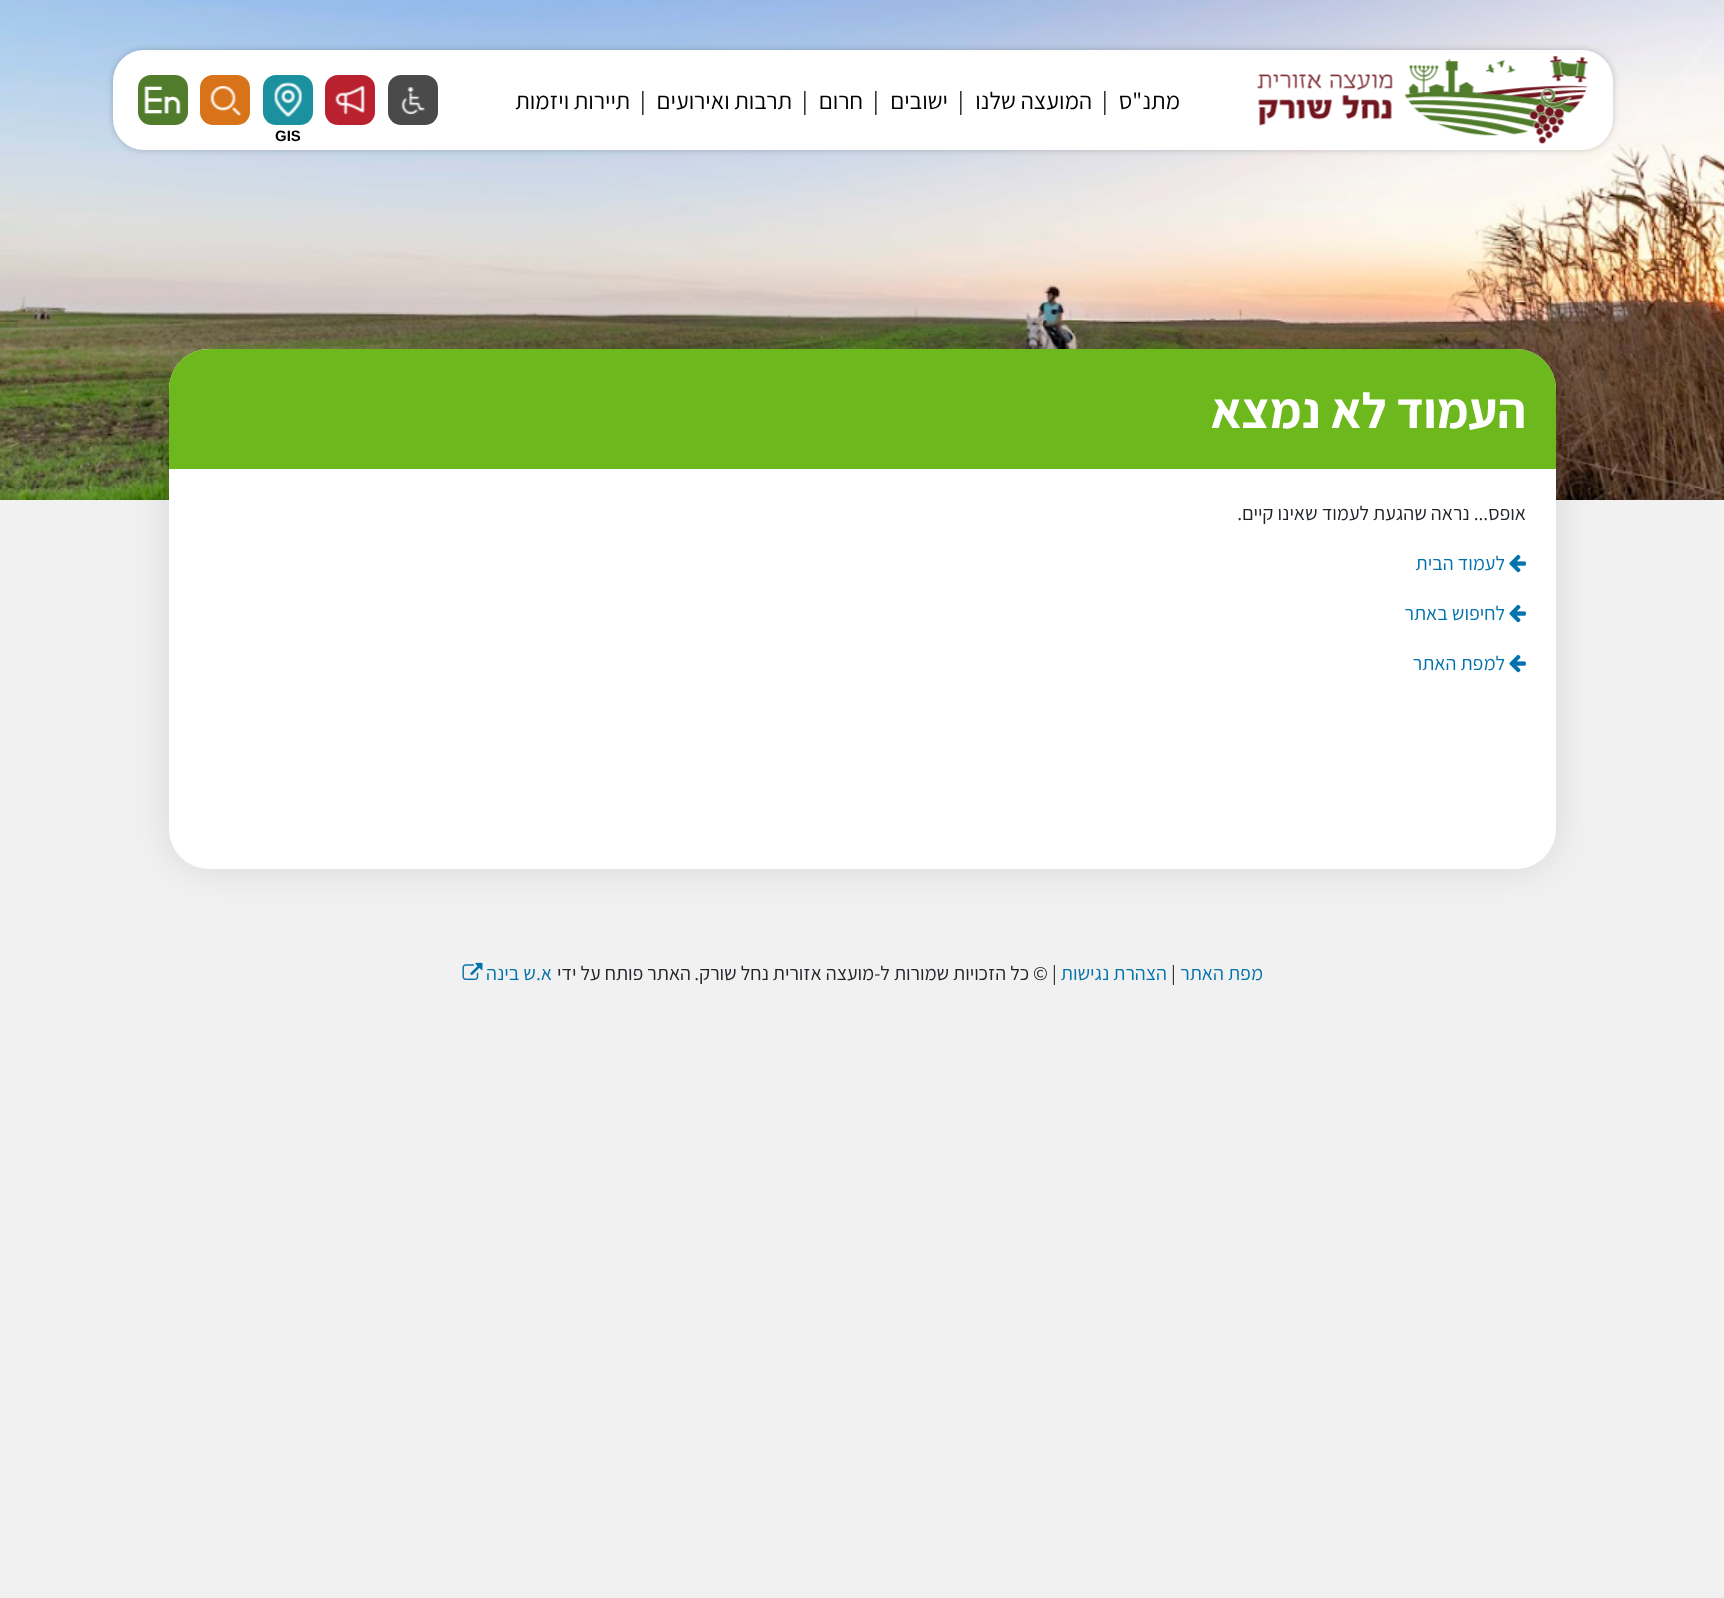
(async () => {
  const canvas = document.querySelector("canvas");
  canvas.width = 1724;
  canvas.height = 1598;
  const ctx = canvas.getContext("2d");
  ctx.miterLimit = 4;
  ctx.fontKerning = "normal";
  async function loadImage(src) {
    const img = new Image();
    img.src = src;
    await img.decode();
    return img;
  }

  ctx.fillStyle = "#f1f1f1";
  ctx.fillRect(0, 0, 1724, 1598);
  ctx.drawImage(await loadImage("img/1.png"), 0, 0, 1724, 500);
  ctx.fillStyle = "rgba(0, 0, 0, 0.2)";
  ctx.filter = "blur(3px)";
  ctx.beginPath();
  ctx.roundRect(113, 50, 1500, 100, 31);
  ctx.fill();
  ctx.filter = "none";
  ctx.fillStyle = "#ffffff";
  ctx.beginPath();
  ctx.roundRect(113, 50, 1500, 100, 31);
  ctx.fill();
  ctx.drawImage(await loadImage("img/2.png"), 1257, 56, 331, 88);
  ctx.fillStyle = "#4a4a4a";
  ctx.beginPath();
  ctx.roundRect(388, 75, 50, 50, 13);
  ctx.fill();
  ctx.drawImage(await loadImage("img/3.png"), 401, 87, 24, 28);
  ctx.fillStyle = "#b8212d";
  ctx.beginPath();
  ctx.roundRect(325, 75, 50, 50, 13);
  ctx.fill();
  ctx.drawImage(await loadImage("img/4.png"), 335, 86, 30, 29);
  ctx.fillStyle = "#d97319";
  ctx.beginPath();
  ctx.roundRect(200, 75, 50, 50, 13);
  ctx.fill();
  ctx.drawImage(await loadImage("img/5.png"), 210, 86, 31, 30);
  ctx.fillStyle = "#517c2c";
  ctx.beginPath();
  ctx.roundRect(138, 75, 50, 50, 13);
  ctx.fill();
  ctx.drawImage(await loadImage("img/6.png"), 144, 86, 37, 28);
  ctx.fillStyle = "#1b919f";
  ctx.beginPath();
  ctx.roundRect(263, 75, 50, 50, 13);
  ctx.fill();
  ctx.drawImage(await loadImage("img/7.png"), 274, 82, 29, 35);
  ctx.fillStyle = "rgba(0, 0, 0, 0.1)";
  ctx.filter = "blur(19px)";
  ctx.beginPath();
  ctx.roundRect(169, 349, 1387, 520, 40);
  ctx.fill();
  ctx.filter = "none";
  ctx.fillStyle = "#ffffff";
  ctx.beginPath();
  ctx.roundRect(169, 349, 1387, 520, 40);
  ctx.fill();
  ctx.fillStyle = "#6db81d";
  ctx.beginPath();
  ctx.roundRect(169, 349, 1387, 120, [40, 40, 0, 0]);
  ctx.fill();
  ctx.drawImage(await loadImage("img/8.png"), 1509, 554, 17, 19);
  ctx.drawImage(await loadImage("img/8.png"), 1509, 604, 17, 19);
  ctx.drawImage(await loadImage("img/8.png"), 1509, 654, 17, 19);
  ctx.drawImage(await loadImage("img/9.png"), 462, 962, 21, 18);
  ctx.direction = "rtl";
  ctx.font = "24px Assistant";
  ctx.fillStyle = "#000000";
  ctx.fillText("מתנ\"ס", 1180, 109);
  ctx.direction = "ltr";
  ctx.fillText("|", 1102, 109);
  ctx.direction = "rtl";
  ctx.fillText("המועצה שלנו", 1092, 109);
  ctx.direction = "ltr";
  ctx.fillText("|", 958, 109);
  ctx.direction = "rtl";
  ctx.fillText("ישובים", 948, 109);
  ctx.direction = "ltr";
  ctx.fillText("|", 873, 109);
  ctx.direction = "rtl";
  ctx.fillText("חרום", 863, 109);
  ctx.direction = "ltr";
  ctx.fillText("|", 802, 109);
  ctx.direction = "rtl";
  ctx.fillText("תרבות ואירועים", 792, 109);
  ctx.direction = "ltr";
  ctx.fillText("|", 640, 109);
  ctx.direction = "rtl";
  ctx.fillText("תיירות ויזמות", 630, 109);
  ctx.direction = "ltr";
  ctx.font = "bold 15px Liberation Sans";
  ctx.fillText("GIS", 275, 141);
  ctx.direction = "rtl";
  ctx.font = "bold 50px Assistant";
  ctx.fillStyle = "#ffffff";
  ctx.fillText("העמוד לא נמצא", 1526, 428);
  ctx.font = "20px Assistant";
  ctx.fillStyle = "#212529";
  ctx.fillText("אופס... נראה שהגעת לעמוד שאינו קיים.", 1526, 520);
  ctx.fillStyle = "#0372ac";
  for (const [text, x, y] of [
    ["לעמוד הבית", 1505, 570],
    ["לחיפוש באתר", 1505, 620],
    ["למפת האתר", 1505, 670],
    ["מפת האתר", 1263, 980],
  ]) {
    ctx.fillText(text, x, y);
  }
  ctx.direction = "ltr";
  ctx.fillStyle = "#212529";
  ctx.fillText("|", 1171, 980);
  ctx.direction = "rtl";
  ctx.fillStyle = "#0372ac";
  ctx.fillText("הצהרת נגישות", 1167, 980);
  ctx.direction = "ltr";
  ctx.fillStyle = "#212529";
  ctx.fillText("|", 1052, 980);
  ctx.direction = "rtl";
  ctx.fillText("© כל הזכויות שמורות ל-מועצה אזורית נחל שורק.", 1048, 980);
  ctx.fillText("האתר פותח על ידי", 691, 980);
  ctx.fillStyle = "#0372ac";
  ctx.fillText("א.ש בינה", 552, 980);
})();
